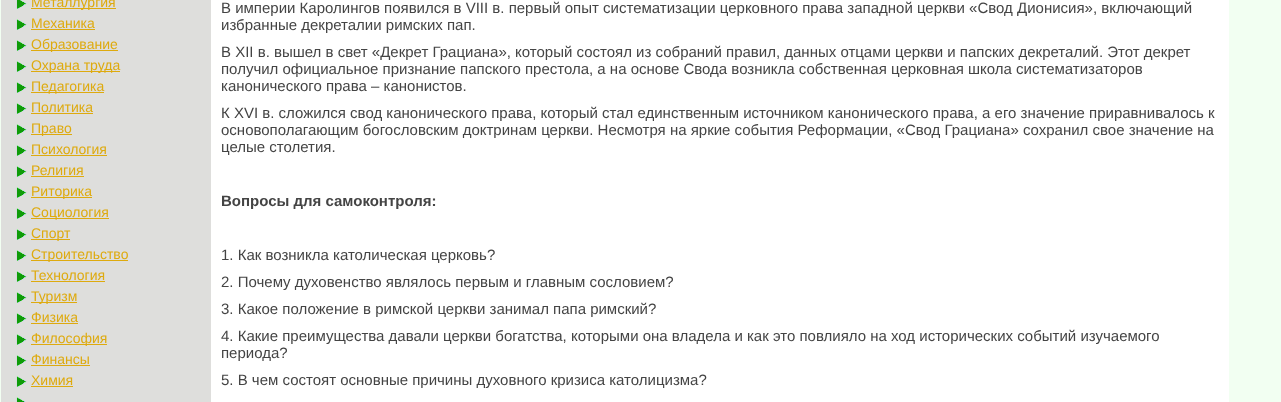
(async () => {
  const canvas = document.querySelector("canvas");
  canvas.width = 1281;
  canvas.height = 402;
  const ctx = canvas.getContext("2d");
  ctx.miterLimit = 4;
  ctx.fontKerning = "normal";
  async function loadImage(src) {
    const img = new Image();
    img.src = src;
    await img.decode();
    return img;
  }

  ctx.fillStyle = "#f2fff2";
  ctx.fillRect(0, 0, 1281, 402);
  ctx.fillStyle = "#dededc";
  ctx.fillRect(1, 0, 210, 402);
  ctx.drawImage(await loadImage("img/1.png"), 16, 0, 11, 9);
  ctx.fillStyle = "#deaa0e";
  ctx.fillRect(31, 8, 85, 1);
  ctx.drawImage(await loadImage("img/2.png"), 16, 19, 11, 11);
  ctx.fillRect(31, 29, 64, 1);
  ctx.drawImage(await loadImage("img/2.png"), 16, 40, 11, 11);
  ctx.fillRect(31, 50, 87, 1);
  ctx.drawImage(await loadImage("img/2.png"), 16, 61, 11, 11);
  ctx.fillRect(31, 71, 89, 1);
  ctx.drawImage(await loadImage("img/2.png"), 16, 82, 11, 11);
  ctx.fillRect(31, 92, 73, 1);
  ctx.drawImage(await loadImage("img/2.png"), 16, 103, 11, 11);
  ctx.fillRect(31, 113, 62, 1);
  ctx.drawImage(await loadImage("img/2.png"), 16, 124, 11, 11);
  ctx.fillRect(31, 134, 41, 1);
  ctx.drawImage(await loadImage("img/2.png"), 16, 145, 11, 11);
  ctx.fillRect(31, 155, 76, 1);
  ctx.drawImage(await loadImage("img/2.png"), 16, 166, 11, 11);
  ctx.fillRect(31, 176, 53, 1);
  ctx.drawImage(await loadImage("img/2.png"), 16, 187, 11, 11);
  ctx.fillRect(31, 197, 61, 1);
  ctx.drawImage(await loadImage("img/2.png"), 16, 208, 11, 11);
  ctx.fillRect(31, 218, 78, 1);
  ctx.drawImage(await loadImage("img/2.png"), 16, 229, 11, 11);
  ctx.fillRect(31, 239, 39, 1);
  ctx.drawImage(await loadImage("img/2.png"), 16, 250, 11, 11);
  ctx.fillRect(31, 260, 97, 1);
  ctx.drawImage(await loadImage("img/2.png"), 16, 271, 11, 11);
  ctx.fillRect(31, 281, 74, 1);
  ctx.drawImage(await loadImage("img/2.png"), 16, 292, 11, 11);
  ctx.fillRect(31, 302, 46, 1);
  ctx.drawImage(await loadImage("img/2.png"), 16, 313, 11, 11);
  ctx.fillRect(31, 323, 47, 1);
  ctx.drawImage(await loadImage("img/2.png"), 16, 334, 11, 11);
  ctx.fillRect(31, 344, 76, 1);
  ctx.drawImage(await loadImage("img/2.png"), 16, 355, 11, 11);
  ctx.fillRect(31, 365, 59, 1);
  ctx.drawImage(await loadImage("img/2.png"), 16, 376, 11, 11);
  ctx.fillRect(31, 386, 42, 1);
  ctx.drawImage(await loadImage("img/3.png"), 16, 397, 9, 5);
  ctx.fillStyle = "#ffffff";
  ctx.fillRect(211, 0, 1018, 402);
  ctx.font = "14px Liberation Sans";
  ctx.fillStyle = "#deaa0e";
  for (const [text, x, y] of [
    ["Металлургия", 31, 7],
    ["Механика", 31, 28],
    ["Образование", 31, 49],
    ["Охрана труда", 31, 70],
    ["Педагогика", 31, 91],
    ["Политика", 31, 112],
    ["Право", 31, 133],
    ["Психология", 31, 154],
    ["Религия", 31, 175],
    ["Риторика", 31, 196],
    ["Социология", 31, 217],
    ["Спорт", 31, 238],
    ["Строительство", 31, 259],
    ["Технология", 31, 280],
    ["Туризм", 31, 301],
    ["Физика", 31, 322],
    ["Философия", 31, 343],
    ["Финансы", 31, 364],
    ["Химия", 31, 385],
  ]) {
    ctx.fillText(text, x, y);
  }
  ctx.font = "15px Liberation Sans";
  ctx.fillStyle = "#444444";
  for (const [text, x, y] of [
    ["В империи Каролингов появился в VIII в. первый опыт систематизации церковного права западной церкви «Свод Дионисия», включающий", 221, 13],
    ["избранные декреталии римских пап.", 221, 30],
    ["В XII в. вышел в свет «Декрет Грациана», который состоял из собраний правил, данных отцами церкви и папских декреталий. Этот декрет", 221, 57],
    ["получил официальное признание папского престола, а на основе Свода возникла собственная церковная школа систематизаторов", 221, 74],
    ["канонического права – канонистов.", 221, 91],
    ["К XVI в. сложился свод канонического права, который стал единственным источником канонического права, а его значение приравнивалось к", 221, 118],
    ["основополагающим богословским доктринам церкви. Несмотря на яркие события Реформации, «Свод Грациана» сохранил свое значение на", 221, 135],
    ["целые столетия.", 221, 152],
  ]) {
    ctx.fillText(text, x, y);
  }
  ctx.font = "bold 15px Liberation Sans";
  ctx.fillText("Вопросы для самоконтроля:", 221, 206);
  ctx.font = "15px Liberation Sans";
  for (const [text, x, y] of [
    ["1. Как возникла католическая церковь?", 221, 260],
    ["2. Почему духовенство являлось первым и главным сословием?", 221, 287],
    ["3. Какое положение в римской церкви занимал папа римский?", 221, 314],
    ["4. Какие преимущества давали церкви богатства, которыми она владела и как это повлияло на ход исторических событий изучаемого", 221, 341],
    ["периода?", 221, 358],
    ["5. В чем состоят основные причины духовного кризиса католицизма?", 221, 385],
  ]) {
    ctx.fillText(text, x, y);
  }
})();
